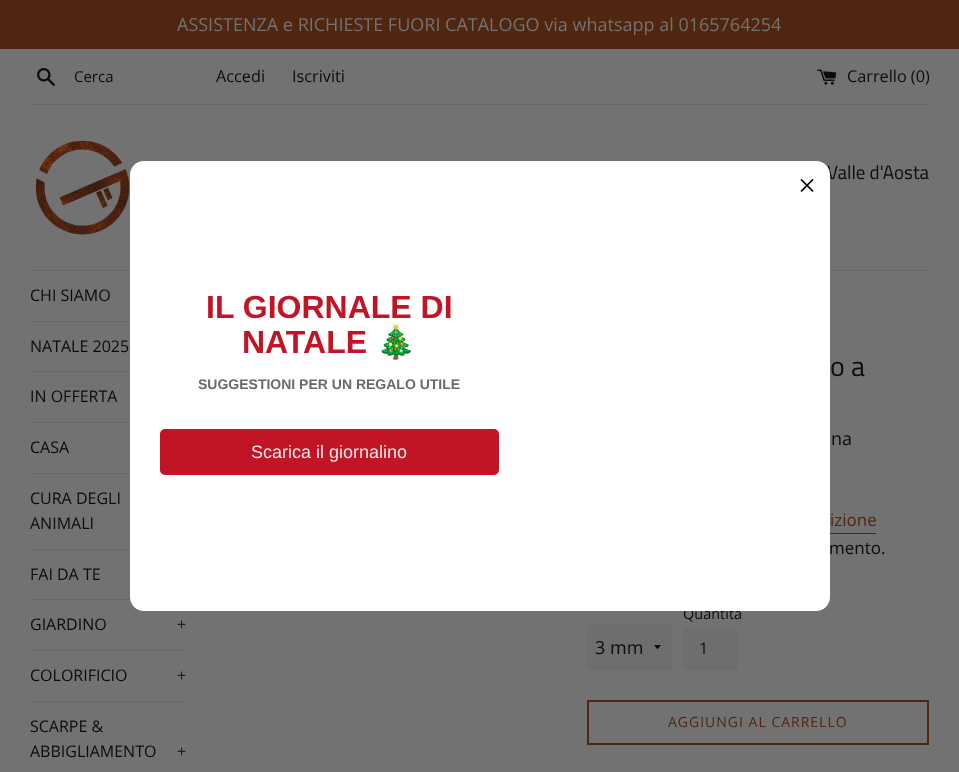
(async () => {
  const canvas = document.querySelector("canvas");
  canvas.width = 959;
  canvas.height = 772;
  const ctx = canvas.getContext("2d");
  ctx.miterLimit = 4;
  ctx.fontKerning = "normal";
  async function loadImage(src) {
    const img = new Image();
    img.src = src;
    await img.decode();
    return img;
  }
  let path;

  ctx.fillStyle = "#727272";
  ctx.fillRect(0, 0, 959, 772);
  ctx.fillStyle = "#502610";
  ctx.fillRect(0, 0, 959, 49);
  ctx.drawImage(await loadImage("img/1.png"), 37, 68, 18, 18);
  ctx.drawImage(await loadImage("img/2.png"), 817, 69, 20, 16);
  ctx.fillStyle = "#696969";
  ctx.fillRect(30, 104, 899, 1);
  ctx.drawImage(await loadImage("img/3.png"), 35, 140, 95, 95);
  for (const [x, y, w, h, color] of [
    [30, 270, 100, 1, "#696969"],
    [30, 321, 100, 1, "#696969"],
    [30, 371, 100, 1, "#696969"],
    [30, 422, 100, 1, "#696969"],
    [30, 473, 100, 1, "#696969"],
    [30, 549, 100, 1, "#696969"],
    [30, 599, 101, 1, "#696969"],
    [30, 650, 156, 1, "#696969"],
    [30, 701, 156, 1, "#696969"],
    [830, 270, 99, 1, "#696969"],
    [830, 533, 46, 1, "#502610"],
    [587, 625, 85, 45, "#6e6e6e"],
  ]) {
    ctx.fillStyle = color;
    ctx.fillRect(x, y, w, h);
  }
  ctx.fillStyle = "#0c0c0c";
  path = new Path2D("M654 645C658.5 650.5 656.5 650.5 661 645Z");
  ctx.fill(path);
  ctx.fillStyle = "#6e6e6e";
  ctx.fillRect(683, 628, 55, 42);
  ctx.strokeStyle = "#502610";
  ctx.lineWidth = 2;
  ctx.strokeRect(588, 701, 340, 43);
  ctx.font = "18px Open Sans";
  ctx.fillStyle = "#727272";
  ctx.fillText("ASSISTENZA e RICHIESTE FUORI CATALOGO via whatsapp al 0165764254", 177, 31);
  ctx.font = "15px Open Sans";
  ctx.fillStyle = "#0c0c0c";
  ctx.fillText("Cerca", 74, 82);
  ctx.font = "16.25px Open Sans";
  for (const [text, x, y] of [
    ["Accedi", 216, 82],
    ["Iscriviti", 292, 82],
    ["Carrello (0)", 847, 82],
  ]) {
    ctx.fillText(text, x, y);
  }
  ctx.font = "19px Titillium Web";
  ctx.fillText("Valle d'Aosta", 827, 179);
  ctx.font = "16px Open Sans";
  for (const [text, x, y] of [
    ["CHI SIAMO", 30, 301],
    ["NATALE 2025", 30, 352],
    ["IN OFFERTA", 30, 402],
    ["CASA", 30, 453],
    ["CURA DEGLI", 30, 504],
    ["ANIMALI", 30, 529],
    ["FAI DA TE", 30, 580],
    ["GIARDINO", 30, 630],
  ]) {
    ctx.fillText(text, x, y);
  }
  ctx.fillStyle = "#202020";
  ctx.fillText("+", 177, 630);
  ctx.fillStyle = "#0c0c0c";
  ctx.fillText("COLORIFICIO", 30, 681);
  ctx.fillStyle = "#202020";
  ctx.fillText("+", 177, 681);
  ctx.fillStyle = "#0c0c0c";
  ctx.fillText("SCARPE &", 30, 732);
  ctx.fillText("ABBIGLIAMENTO", 30, 757);
  ctx.fillStyle = "#202020";
  ctx.fillText("+", 177, 757);
  ctx.font = "28px Titillium Web";
  ctx.fillStyle = "#0c0c0c";
  ctx.fillText("o a", 830, 376);
  ctx.font = "18px Open Sans";
  ctx.fillText("na", 831, 445);
  ctx.font = "17px Open Sans";
  ctx.fillStyle = "#502610";
  ctx.fillText("izione", 830, 526);
  ctx.fillStyle = "#0c0c0c";
  ctx.fillText("mento.", 829, 554);
  ctx.font = "18px Open Sans";
  ctx.fillText("3 mm", 595, 654);
  ctx.font = "14.5px Open Sans";
  ctx.fillText("Quantità", 683, 619);
  ctx.font = "16px Open Sans";
  ctx.fillText("1", 699, 654);
  ctx.letterSpacing = "1px";
  ctx.font = "14px Open Sans";
  ctx.fillStyle = "#502610";
  ctx.fillText("AGGIUNGI AL CARRELLO", 668, 727);
  ctx.fillStyle = "#ffffff";
  ctx.beginPath();
  ctx.roundRect(130, 161, 700, 450, 14);
  ctx.fill();
  ctx.drawImage(await loadImage("img/4.png"), 800, 179, 14, 13);
  ctx.letterSpacing = "0px";
  ctx.font = "bold 32px Liberation Sans";
  ctx.fillStyle = "#c11425";
  ctx.fillText("IL GIORNALE DI", 206, 318);
  ctx.fillText("NATALE", 242, 353);
  ctx.font = "bold 32px Noto Color Emoji";
  ctx.fillText("🎄", 376, 353);
  ctx.font = "bold 14px Liberation Sans";
  ctx.fillStyle = "#696969";
  ctx.fillText("SUGGESTIONI PER UN REGALO UTILE", 198, 389);
  ctx.fillStyle = "#c11425";
  ctx.beginPath();
  ctx.roundRect(161, 430, 337, 44, 4);
  ctx.fill();
  ctx.strokeStyle = "#c11425";
  ctx.stroke();
  ctx.font = "18px Liberation Sans";
  ctx.fillStyle = "#e8e8e8";
  ctx.fillText("Scarica il giornalino", 251, 458);
})();
